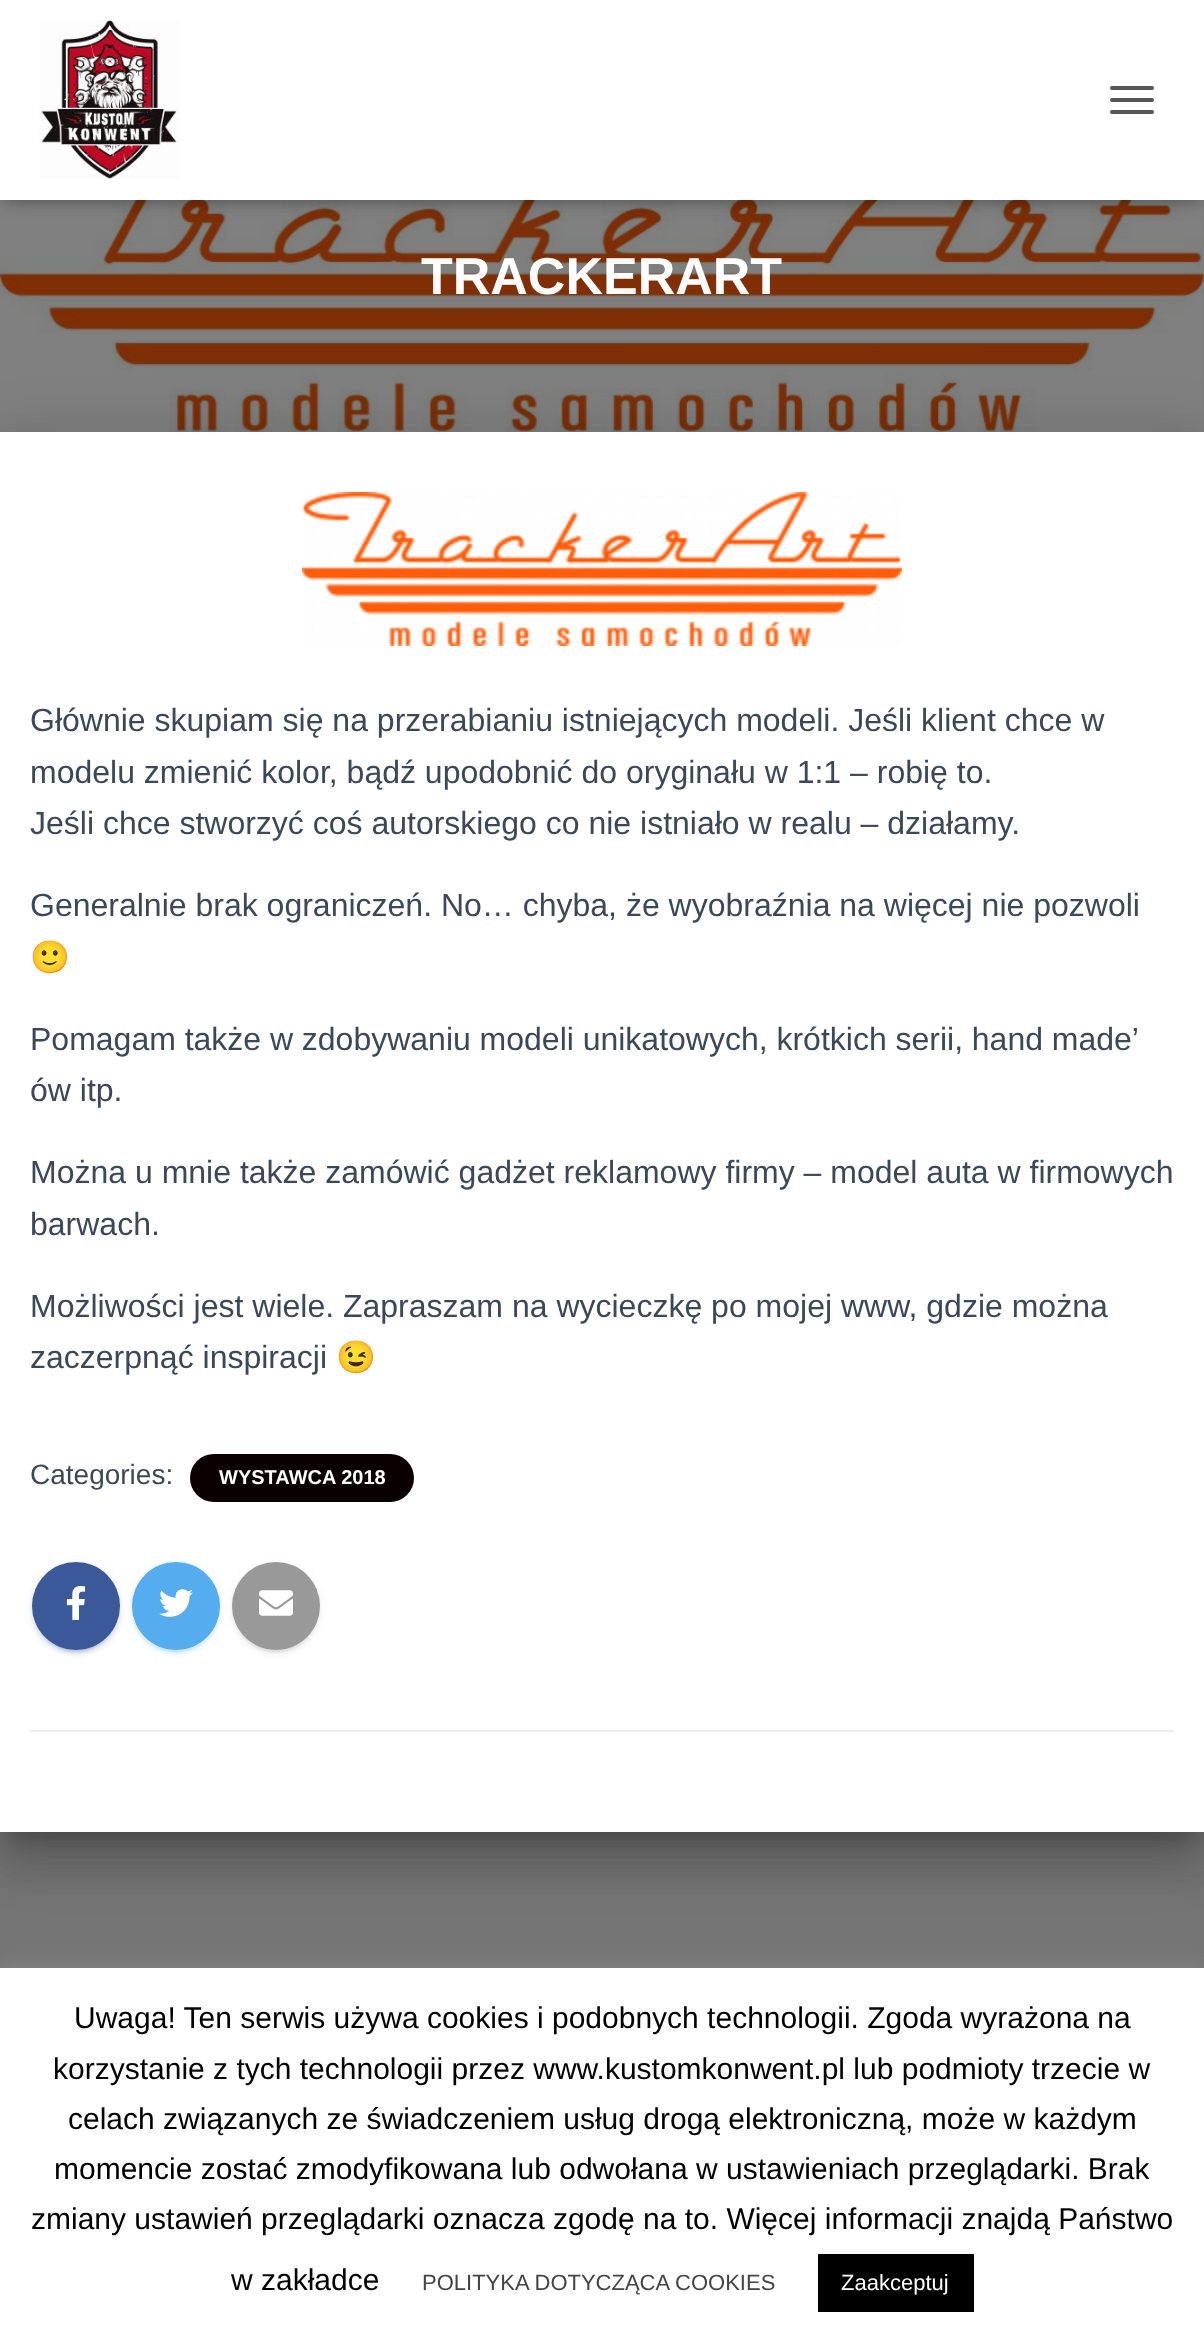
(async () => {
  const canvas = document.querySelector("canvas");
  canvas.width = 1204;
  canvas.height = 2335;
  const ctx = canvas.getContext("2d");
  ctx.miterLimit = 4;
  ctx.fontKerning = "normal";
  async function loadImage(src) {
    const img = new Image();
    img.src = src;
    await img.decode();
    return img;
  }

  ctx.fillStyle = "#757575";
  ctx.fillRect(0, 0, 1204, 2335);
  ctx.drawImage(await loadImage("img/2.png"), 0, 200, 1204, 232);
  ctx.fillStyle = "rgba(0, 0, 0, 0.1)";
  ctx.filter = "blur(5px)";
  ctx.beginPath();
  ctx.rect(4, 12, 1196, 192);
  ctx.fill();
  ctx.filter = "none";
  ctx.fillStyle = "rgba(0, 0, 0, 0.12)";
  ctx.filter = "blur(10px)";
  ctx.beginPath();
  ctx.rect(0, 2, 1204, 200);
  ctx.fill();
  ctx.filter = "none";
  ctx.fillStyle = "rgba(0, 0, 0, 0.42)";
  ctx.filter = "blur(10px)";
  ctx.beginPath();
  ctx.rect(12, 14, 1180, 176);
  ctx.fill();
  ctx.filter = "none";
  ctx.fillStyle = "#ffffff";
  ctx.fillRect(0, 0, 1204, 200);
  ctx.drawImage(await loadImage("img/1.png"), 37, 20, 144, 159);
  ctx.fillStyle = "#555555";
  ctx.beginPath();
  ctx.roundRect(1110, 86, 44, 4, 2);
  ctx.fill();
  ctx.beginPath();
  ctx.roundRect(1110, 98, 44, 4, 2);
  ctx.fill();
  ctx.beginPath();
  ctx.roundRect(1110, 110, 44, 4, 2);
  ctx.fill();
  ctx.fillStyle = "rgba(0, 0, 0, 0.2)";
  ctx.filter = "blur(10px)";
  ctx.beginPath();
  ctx.rect(10, 458, 1184, 1380);
  ctx.fill();
  ctx.filter = "none";
  ctx.fillStyle = "rgba(0, 0, 0, 0.12)";
  ctx.filter = "blur(30px)";
  ctx.beginPath();
  ctx.rect(-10, 434, 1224, 1420);
  ctx.fill();
  ctx.filter = "none";
  ctx.fillStyle = "rgba(0, 0, 0, 0.14)";
  ctx.filter = "blur(24px)";
  ctx.beginPath();
  ctx.rect(-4, 460, 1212, 1408);
  ctx.fill();
  ctx.filter = "none";
  ctx.fillStyle = "#ffffff";
  ctx.fillRect(0, 432, 1204, 1400);
  ctx.drawImage(await loadImage("img/3.png"), 302, 492, 600, 154);
  ctx.fillStyle = "#0a0002";
  ctx.beginPath();
  ctx.roundRect(190, 1454, 224, 48, 24);
  ctx.fill();
  ctx.fillStyle = "rgba(59, 89, 152, 0.12)";
  ctx.filter = "blur(5px)";
  ctx.beginPath();
  ctx.roundRect(32, 1564, 88, 88, 44);
  ctx.fill();
  ctx.filter = "none";
  ctx.fillStyle = "rgba(59, 89, 152, 0.2)";
  ctx.filter = "blur(1px)";
  ctx.beginPath();
  ctx.roundRect(36, 1572, 80, 80, 40);
  ctx.fill();
  ctx.filter = "none";
  ctx.fillStyle = "rgba(59, 89, 152, 0.14)";
  ctx.filter = "blur(2px)";
  ctx.beginPath();
  ctx.roundRect(32, 1566, 88, 88, 44);
  ctx.fill();
  ctx.filter = "none";
  ctx.fillStyle = "#3b5998";
  ctx.beginPath();
  ctx.arc(76, 1606, 44, 0, Math.PI * 2);
  ctx.fill();
  ctx.drawImage(await loadImage("img/4.png"), 66, 1586, 20, 34);
  ctx.fillStyle = "rgba(85, 172, 238, 0.12)";
  ctx.filter = "blur(5px)";
  ctx.beginPath();
  ctx.roundRect(132, 1564, 88, 88, 44);
  ctx.fill();
  ctx.filter = "none";
  ctx.fillStyle = "rgba(85, 172, 238, 0.2)";
  ctx.filter = "blur(1px)";
  ctx.beginPath();
  ctx.roundRect(136, 1572, 80, 80, 40);
  ctx.fill();
  ctx.filter = "none";
  ctx.fillStyle = "rgba(85, 172, 238, 0.14)";
  ctx.filter = "blur(2px)";
  ctx.beginPath();
  ctx.roundRect(132, 1566, 88, 88, 44);
  ctx.fill();
  ctx.filter = "none";
  ctx.fillStyle = "#55acee";
  ctx.beginPath();
  ctx.arc(176, 1606, 44, 0, Math.PI * 2);
  ctx.fill();
  ctx.drawImage(await loadImage("img/5.png"), 159, 1589, 34, 28);
  ctx.fillStyle = "rgba(153, 153, 153, 0.12)";
  ctx.filter = "blur(5px)";
  ctx.beginPath();
  ctx.roundRect(232, 1564, 88, 88, 44);
  ctx.fill();
  ctx.filter = "none";
  ctx.fillStyle = "rgba(153, 153, 153, 0.2)";
  ctx.filter = "blur(1px)";
  ctx.beginPath();
  ctx.roundRect(236, 1572, 80, 80, 40);
  ctx.fill();
  ctx.filter = "none";
  ctx.fillStyle = "rgba(153, 153, 153, 0.14)";
  ctx.filter = "blur(2px)";
  ctx.beginPath();
  ctx.roundRect(232, 1566, 88, 88, 44);
  ctx.fill();
  ctx.filter = "none";
  ctx.fillStyle = "#999999";
  ctx.beginPath();
  ctx.arc(276, 1606, 44, 0, Math.PI * 2);
  ctx.fill();
  ctx.drawImage(await loadImage("img/6.png"), 259, 1590, 34, 26);
  ctx.fillStyle = "#eeeeee";
  ctx.fillRect(30, 1730, 1144, 2);
  ctx.fillStyle = "rgba(172, 171, 171, 0.3)";
  ctx.filter = "blur(10px)";
  ctx.beginPath();
  ctx.rect(0, 1966, 1204, 368);
  ctx.fill();
  ctx.filter = "none";
  ctx.fillStyle = "#ffffff";
  ctx.fillRect(0, 1968, 1204, 367);
  ctx.fillStyle = "#000000";
  ctx.fillRect(818, 2254, 156, 58);
  ctx.font = "bold 52px Liberation Sans";
  ctx.fillStyle = "#ffffff";
  ctx.fillText("TRACKERART", 421, 294);
  ctx.font = "32px Liberation Sans";
  ctx.fillStyle = "#3c4858";
  for (const [text, x, y] of [
    ["Głównie skupiam się na przerabianiu istniejących modeli. Jeśli klient chce w", 30, 731],
    ["modelu zmienić kolor, bądź upodobnić do oryginału w 1:1 – robię to.", 30, 783],
    ["Jeśli chce stworzyć coś autorskiego co nie istniało w realu – działamy.", 30, 834],
    ["Generalnie brak ograniczeń. No… chyba, że wyobraźnia na więcej nie pozwoli", 30, 916],
  ]) {
    ctx.fillText(text, x, y);
  }
  ctx.font = "32px Noto Color Emoji";
  ctx.fillText("🙂", 30, 968);
  ctx.wordSpacing = "-0.1px";
  ctx.font = "32px Liberation Sans";
  ctx.fillText("Pomagam także w zdobywaniu modeli unikatowych, krótkich serii, hand made’", 30, 1050);
  ctx.wordSpacing = "0px";
  for (const [text, x, y] of [
    ["ów itp.", 30, 1101],
    ["Można u mnie także zamówić gadżet reklamowy firmy – model auta w firmowych", 30, 1183],
    ["barwach.", 30, 1235],
    ["Możliwości jest wiele. Zapraszam na wycieczkę po mojej www, gdzie można", 30, 1317],
    ["zaczerpnąć inspiracji", 30, 1368],
  ]) {
    ctx.fillText(text, x, y);
  }
  ctx.font = "32px Noto Color Emoji";
  ctx.fillText("😉", 336, 1368);
  ctx.font = "28px Liberation Sans";
  ctx.fillText("Categories:", 30, 1484);
  ctx.font = "bold 20px Liberation Sans";
  ctx.fillStyle = "#ffffff";
  ctx.fillText("WYSTAWCA 2018", 219, 1484);
  ctx.font = "30px Liberation Sans";
  ctx.fillStyle = "#000000";
  for (const [text, x, y] of [
    ["Uwaga! Ten serwis używa cookies i podobnych technologii. Zgoda wyrażona na", 74, 2028],
    ["korzystanie z tych technologii przez www.kustomkonwent.pl lub podmioty trzecie w", 53, 2079],
    ["celach związanych ze świadczeniem usług drogą elektroniczną, może w każdym", 68, 2129],
    ["momencie zostać zmodyfikowana lub odwołana w ustawieniach przeglądarki. Brak", 54, 2179],
    ["zmiany ustawień przeglądarki oznacza zgodę na to. Więcej informacji znajdą Państwo", 31, 2229],
    ["w zakładce", 231, 2290],
  ]) {
    ctx.fillText(text, x, y);
  }
  ctx.font = "22px Liberation Sans";
  ctx.fillStyle = "#444444";
  ctx.fillText("POLITYKA DOTYCZĄCA COOKIES", 422, 2290);
  ctx.fillStyle = "#ffffff";
  ctx.fillText("Zaakceptuj", 841, 2290);
})();
